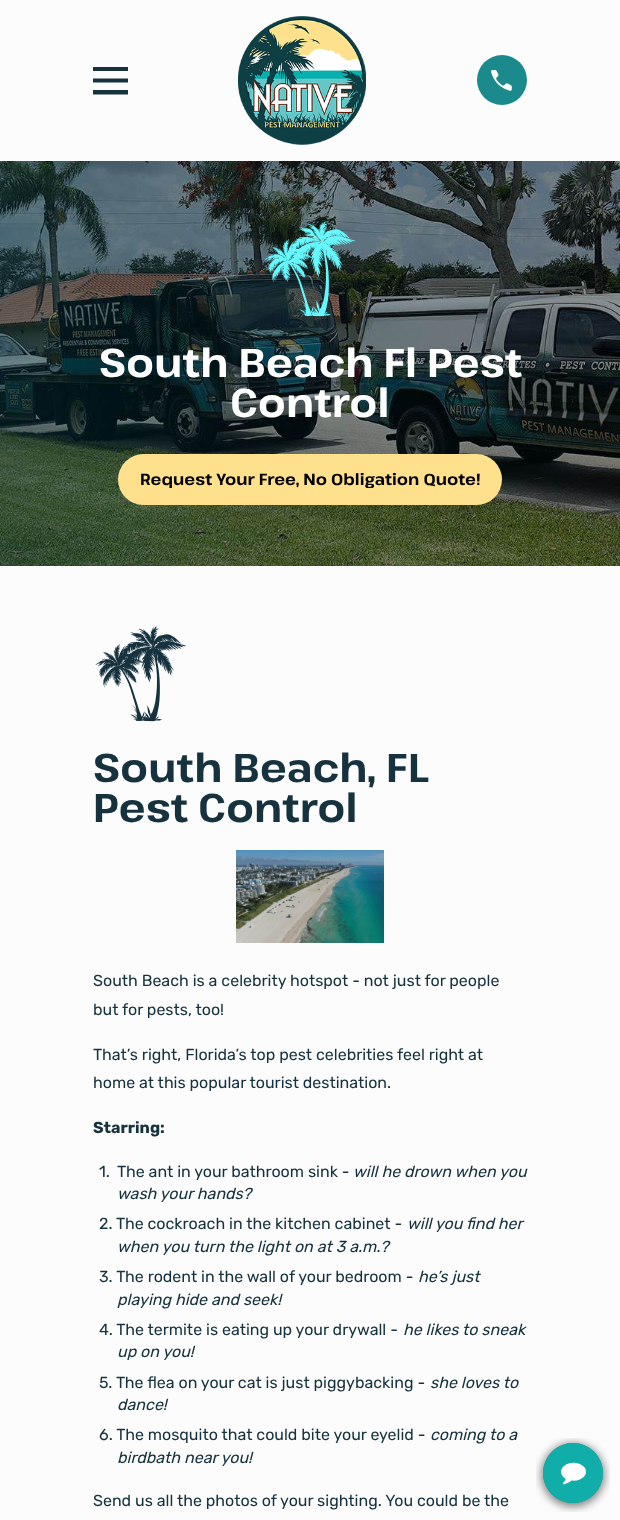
(async () => {
  const canvas = document.querySelector("canvas");
  canvas.width = 620;
  canvas.height = 1520;
  const ctx = canvas.getContext("2d");
  ctx.miterLimit = 4;
  ctx.fontKerning = "normal";
  async function loadImage(src) {
    const img = new Image();
    img.src = src;
    await img.decode();
    return img;
  }
  let path;

  ctx.fillStyle = "#ffffff";
  ctx.fillRect(0, 0, 620, 1520);
  ctx.fillStyle = "#fcfcfc";
  ctx.fillRect(0, 0, 620, 161);
  ctx.fillStyle = "#16323e";
  path = new Path2D("M93 67V71H128V67ZM93 78.5V82.5H128V78.5ZM93 90V94.5H128V90Z");
  ctx.fill(path);
  ctx.drawImage(await loadImage("img/1.png"), 238, 16, 128, 129);
  ctx.fillStyle = "#1b8a8d";
  ctx.beginPath();
  ctx.arc(502, 80, 25, 0, Math.PI * 2);
  ctx.fill();
  ctx.drawImage(await loadImage("img/2.png"), 491, 70, 21, 21);
  ctx.drawImage(await loadImage("img/3.png"), 0, 161, 620, 405);
  ctx.drawImage(await loadImage("img/4.png"), 264, 221, 92, 96);
  ctx.fillStyle = "#ffe18d";
  ctx.beginPath();
  ctx.roundRect(118, 454, 384, 51, 25.5);
  ctx.fill();
  ctx.fillStyle = "#fcfcfc";
  ctx.fillRect(0, 566, 620, 954);
  ctx.drawImage(await loadImage("img/5.png"), 95, 626, 92, 96);
  ctx.drawImage(await loadImage("img/6.png"), 236, 850, 148, 93);
  ctx.drawImage(await loadImage("img/7.png"), 536, 1438, 74, 74);
  ctx.drawImage(await loadImage("img/8.png"), 536, 1438, 74, 74);
  ctx.font = "bold 40px Pathway Extreme";
  ctx.fillStyle = "#ffffff";
  ctx.fillText("South Beach Fl Pest", 99, 377);
  ctx.fillText("Control", 230, 417);
  ctx.font = "bold 16px Pathway Extreme";
  ctx.fillStyle = "#000000";
  ctx.fillText("Request Your Free, No Obligation Quote!", 140, 485);
  ctx.font = "bold 40px Pathway Extreme";
  ctx.fillStyle = "#16323e";
  ctx.fillText("South Beach, FL", 93, 782);
  ctx.fillText("Pest Control", 93, 822);
  ctx.font = "16px Rubik";
  for (const [text, x, y] of [
    ["South Beach is a celebrity hotspot - not just for people", 93, 986],
    ["but for pests, too!", 93, 1015],
    ["That’s right, Florida’s top pest celebrities feel right at", 93, 1060],
    ["home at this popular tourist destination.", 93, 1088],
  ]) {
    ctx.fillText(text, x, y);
  }
  ctx.font = "bold 16px Rubik";
  ctx.fillText("Starring:", 93, 1133);
  ctx.font = "16px Rubik";
  ctx.fillText("1.", 99, 1177);
  ctx.fillText("The ant in your bathroom sink -", 117, 1177);
  ctx.font = "italic 16px Rubik";
  ctx.fillText("will he drown when you", 353, 1177);
  ctx.fillText("wash your hands?", 117, 1199);
  ctx.font = "16px Rubik";
  ctx.fillText("2. The cockroach in the kitchen cabinet -", 99, 1229);
  ctx.font = "italic 16px Rubik";
  ctx.fillText("will you find her", 407, 1229);
  ctx.fillText("when you turn the light on at 3 a.m.?", 117, 1252);
  ctx.font = "16px Rubik";
  ctx.fillText("3. The rodent in the wall of your bedroom -", 99, 1282);
  ctx.font = "italic 16px Rubik";
  ctx.fillText("he’s just", 418, 1282);
  ctx.fillText("playing hide and seek!", 117, 1305);
  ctx.font = "16px Rubik";
  ctx.fillText("4. The termite is eating up your drywall -", 99, 1335);
  ctx.font = "italic 16px Rubik";
  ctx.fillText("he likes to sneak", 403, 1335);
  ctx.fillText("up on you!", 117, 1357);
  ctx.font = "16px Rubik";
  ctx.fillText("5. The flea on your cat is just piggybacking -", 99, 1388);
  ctx.font = "italic 16px Rubik";
  ctx.fillText("she loves to", 430, 1388);
  ctx.fillText("dance!", 117, 1410);
  ctx.font = "16px Rubik";
  ctx.fillText("6. The mosquito that could bite your eyelid -", 99, 1440);
  ctx.font = "italic 16px Rubik";
  ctx.fillText("coming to a", 430, 1440);
  ctx.fillText("birdbath near you!", 117, 1463);
  ctx.font = "16px Rubik";
  ctx.fillText("Send us all the photos of your sighting. You could be the", 93, 1506);
})();
